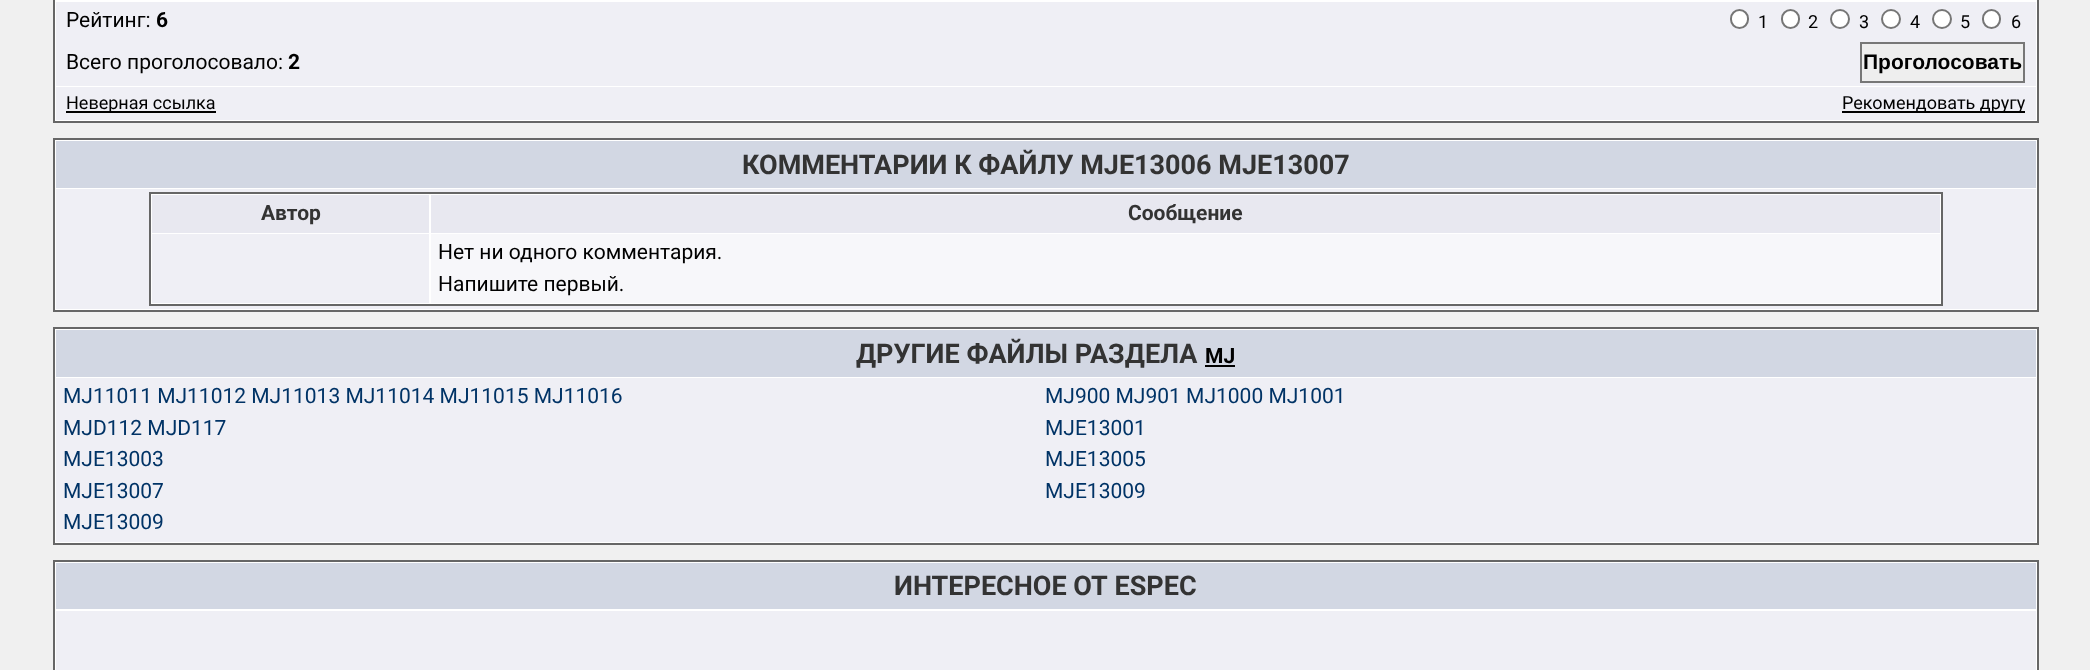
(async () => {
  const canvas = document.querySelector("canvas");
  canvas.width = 2090;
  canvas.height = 670;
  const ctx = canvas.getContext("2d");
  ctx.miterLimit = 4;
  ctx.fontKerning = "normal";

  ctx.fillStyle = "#f0f0f0";
  ctx.fillRect(0, 0, 2090, 670);
  ctx.fillStyle = "#ffffff";
  ctx.beginPath();
  ctx.rect(54, -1, 1984, 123);
  ctx.fill();
  ctx.strokeStyle = "#666666";
  ctx.lineWidth = 2;
  ctx.stroke();
  ctx.fillStyle = "#efeff5";
  ctx.fillRect(56, 2, 1980, 84);
  ctx.fillStyle = "#ffffff";
  ctx.beginPath();
  ctx.roundRect(1731, 10, 17, 18, 8.5);
  ctx.fill();
  ctx.strokeStyle = "#767676";
  ctx.stroke();
  ctx.beginPath();
  ctx.roundRect(1782, 10, 17, 18, 8.5);
  ctx.fill();
  ctx.stroke();
  ctx.beginPath();
  ctx.arc(1840, 19, 9, 0, Math.PI * 2);
  ctx.fill();
  ctx.stroke();
  ctx.beginPath();
  ctx.arc(1891, 19, 9, 0, Math.PI * 2);
  ctx.fill();
  ctx.stroke();
  ctx.beginPath();
  ctx.arc(1942, 19, 9, 0, Math.PI * 2);
  ctx.fill();
  ctx.stroke();
  ctx.beginPath();
  ctx.roundRect(1983, 10, 17, 18, 8.5);
  ctx.fill();
  ctx.stroke();
  ctx.fillStyle = "#eeeeee";
  ctx.beginPath();
  ctx.rect(1861, 43, 163, 39);
  ctx.fill();
  ctx.strokeStyle = "#777777";
  ctx.stroke();
  for (const [x, y, w, h, color] of [
    [56, 87, 1980, 33, "#efeff5"],
    [66, 111, 150, 2, "#000000"],
    [1842, 111, 183, 2, "#000000"],
  ]) {
    ctx.fillStyle = color;
    ctx.fillRect(x, y, w, h);
  }
  ctx.fillStyle = "#ffffff";
  ctx.beginPath();
  ctx.rect(54, 139, 1984, 172);
  ctx.fill();
  ctx.strokeStyle = "#666666";
  ctx.stroke();
  ctx.fillStyle = "#d2d7e3";
  ctx.fillRect(56, 141, 1980, 47);
  ctx.fillStyle = "#efeff5";
  ctx.fillRect(56, 189, 1980, 120);
  ctx.fillStyle = "#ffffff";
  ctx.beginPath();
  ctx.rect(150, 193, 1792, 112);
  ctx.fill();
  ctx.stroke();
  for (const [x, y, w, h, color] of [
    [152, 195, 277, 38, "#e8e8f0"],
    [431, 195, 1509, 38, "#e8e8f0"],
    [152, 234, 277, 69, "#efeff5"],
    [431, 234, 1509, 69, "#f7f7fa"],
  ]) {
    ctx.fillStyle = color;
    ctx.fillRect(x, y, w, h);
  }
  ctx.fillStyle = "#ffffff";
  ctx.beginPath();
  ctx.rect(54, 328, 1984, 216);
  ctx.fill();
  ctx.stroke();
  for (const [x, y, w, h, color] of [
    [56, 330, 1980, 47, "#d2d7e3"],
    [1205, 365, 30, 2, "#000000"],
    [56, 378, 1980, 164, "#efeff5"],
  ]) {
    ctx.fillStyle = color;
    ctx.fillRect(x, y, w, h);
  }
  ctx.fillStyle = "#ffffff";
  ctx.beginPath();
  ctx.rect(54, 561, 1984, 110);
  ctx.fill();
  ctx.stroke();
  ctx.fillStyle = "#d2d7e3";
  ctx.fillRect(56, 563, 1980, 46);
  ctx.fillStyle = "#efeff5";
  ctx.fillRect(56, 611, 1980, 59);
  ctx.font = "21px Roboto";
  ctx.fillStyle = "#000000";
  ctx.fillText("Рейтинг:", 66, 27);
  ctx.font = "bold 21px Roboto";
  ctx.fillText("6", 156, 27);
  ctx.font = "18px Roboto";
  for (const [text, x, y] of [
    ["1", 1758, 28],
    ["2", 1808, 28],
    ["3", 1859, 28],
    ["4", 1910, 28],
    ["5", 1960, 28],
    ["6", 2011, 28],
  ]) {
    ctx.fillText(text, x, y);
  }
  ctx.font = "21px Roboto";
  ctx.fillText("Всего проголосовало:", 66, 69);
  ctx.font = "bold 21px Roboto";
  ctx.fillText("2", 288, 69);
  ctx.font = "bold 21px Liberation Sans";
  ctx.fillText("Проголосовать", 1863, 69);
  ctx.font = "18px Roboto";
  ctx.fillText("Неверная ссылка", 66, 109);
  ctx.fillText("Рекомендовать другу", 1842, 109);
  ctx.font = "bold 27px Roboto";
  ctx.fillStyle = "#333333";
  ctx.fillText("КОММЕНТАРИИ К ФАЙЛУ MJE13006 MJE13007", 742, 174);
  ctx.font = "bold 21px Roboto";
  ctx.fillText("Автор", 261, 220);
  ctx.fillText("Сообщение", 1128, 220);
  ctx.font = "21px Roboto";
  ctx.fillStyle = "#000000";
  ctx.fillText("Нет ни одного комментария.", 438, 259);
  ctx.fillText("Напишите первый.", 438, 291);
  ctx.font = "bold 27px Roboto";
  ctx.fillStyle = "#333333";
  ctx.fillText("ДРУГИЕ ФАЙЛЫ РАЗДЕЛА", 856, 363);
  ctx.font = "bold 21px Roboto";
  ctx.fillStyle = "#000000";
  ctx.fillText("MJ", 1205, 363);
  ctx.font = "21px Roboto";
  ctx.fillStyle = "#003366";
  for (const [text, x, y] of [
    ["MJ11011 MJ11012 MJ11013 MJ11014 MJ11015 MJ11016", 63, 403],
    ["MJ900 MJ901 MJ1000 MJ1001", 1045, 403],
    ["MJD112 MJD117", 63, 435],
    ["MJE13001", 1045, 435],
    ["MJE13003", 63, 466],
    ["MJE13005", 1045, 466],
    ["MJE13007", 63, 498],
    ["MJE13009", 1045, 498],
    ["MJE13009", 63, 529],
  ]) {
    ctx.fillText(text, x, y);
  }
  ctx.font = "bold 27px Roboto";
  ctx.fillStyle = "#333333";
  ctx.fillText("ИНТЕРЕСНОЕ ОТ ESPEC", 894, 595);
})();
